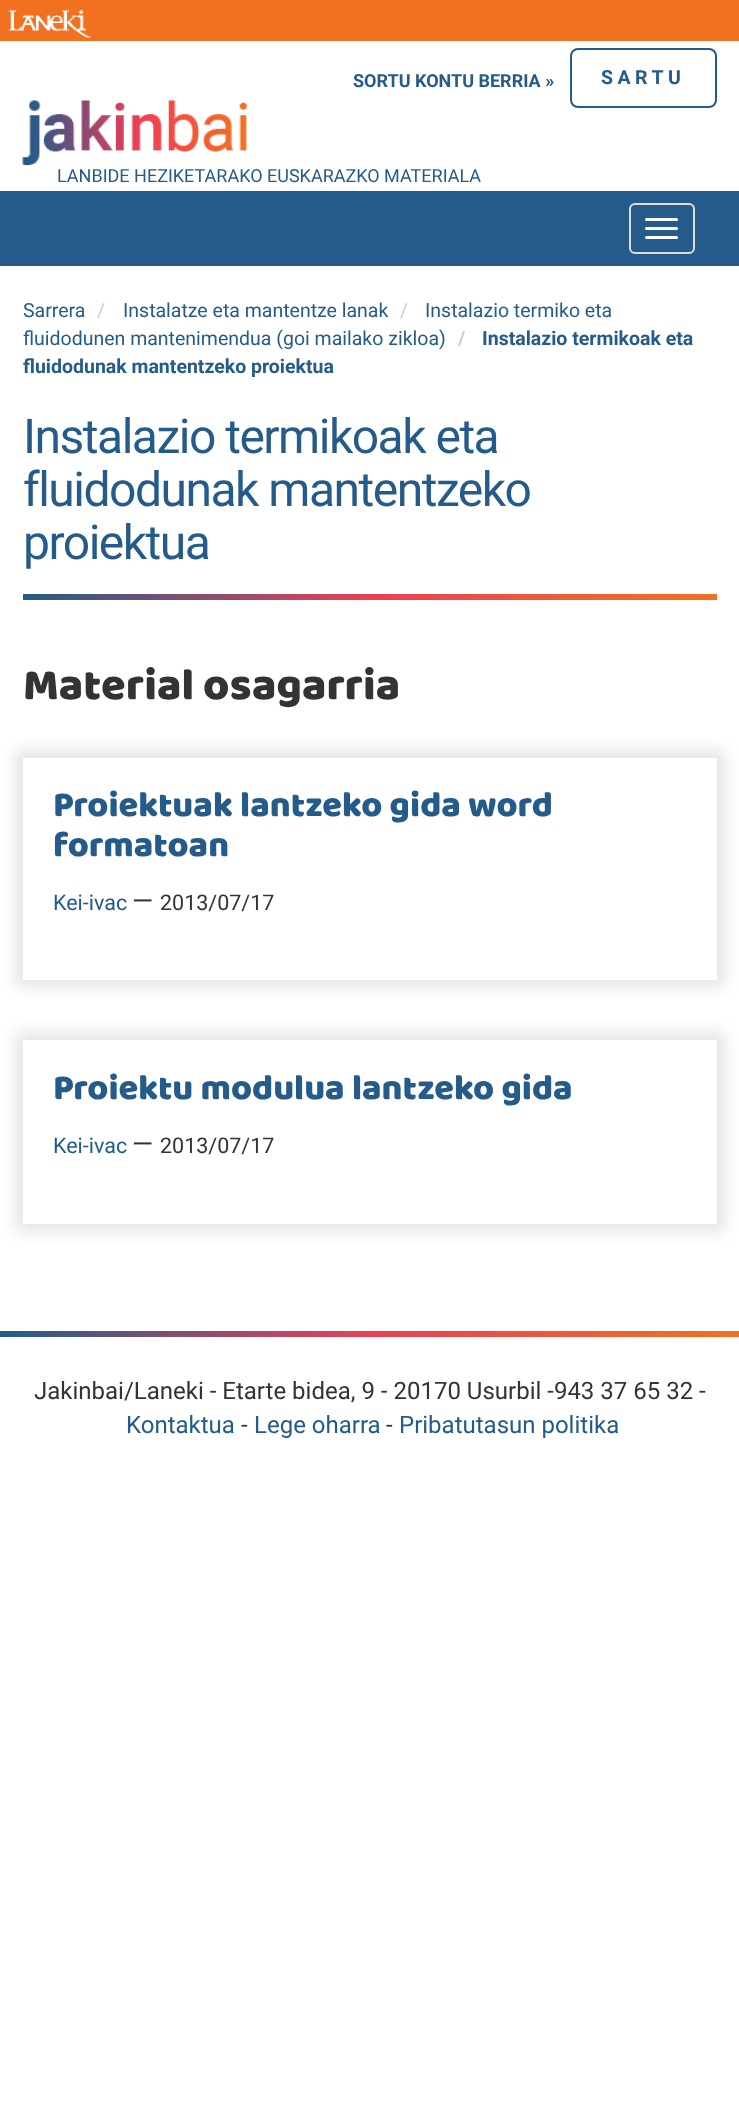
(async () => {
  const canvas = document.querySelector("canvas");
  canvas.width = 739;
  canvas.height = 2102;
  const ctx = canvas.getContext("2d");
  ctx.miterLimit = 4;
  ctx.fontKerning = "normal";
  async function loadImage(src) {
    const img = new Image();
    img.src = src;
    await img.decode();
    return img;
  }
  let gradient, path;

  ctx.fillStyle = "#ffffff";
  ctx.fillRect(0, 0, 739, 2102);
  ctx.fillStyle = "#f27121";
  ctx.fillRect(0, 0, 739, 41);
  ctx.drawImage(await loadImage("img/1.png"), 8, 9, 84, 29);
  ctx.beginPath();
  ctx.roundRect(571, 49, 145, 58, 7);
  ctx.strokeStyle = "#245b8a";
  ctx.lineWidth = 2;
  ctx.stroke();
  ctx.drawImage(await loadImage("img/2.png"), 22, 100, 226, 65);
  ctx.fillStyle = "#245b8a";
  ctx.fillRect(0, 191, 739, 75);
  ctx.beginPath();
  ctx.roundRect(630, 204, 64, 49, 5);
  ctx.strokeStyle = "#dddddd";
  ctx.stroke();
  ctx.fillStyle = "#ffffff";
  ctx.beginPath();
  ctx.roundRect(645, 218, 33, 3, 1.5);
  ctx.fill();
  ctx.beginPath();
  ctx.roundRect(645, 227, 33, 3, 1.5);
  ctx.fill();
  ctx.beginPath();
  ctx.roundRect(645, 236, 33, 3, 1.5);
  ctx.fill();
  gradient = ctx.createLinearGradient(23, 597, 717, 597);
  gradient.addColorStop(0, "#235c8a");
  gradient.addColorStop(0.5, "#e94056");
  gradient.addColorStop(1, "#f27121");
  ctx.fillStyle = gradient;
  ctx.fillRect(23, 594, 694, 6);
  ctx.save();
  path = new Path2D("M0 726H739V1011H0ZM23 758H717V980H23Z");
  ctx.clip(path, "evenodd");
  ctx.fillStyle = "rgba(0, 0, 0, 0.1)";
  ctx.filter = "blur(7.5px)";
  ctx.beginPath();
  ctx.rect(15, 750, 710, 237);
  ctx.fill();
  ctx.filter = "none";
  ctx.restore();
  ctx.save();
  path = new Path2D("M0 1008H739V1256H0ZM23 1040H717V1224H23Z");
  ctx.clip(path, "evenodd");
  ctx.fillStyle = "rgba(0, 0, 0, 0.1)";
  ctx.filter = "blur(7.5px)";
  ctx.beginPath();
  ctx.rect(15, 1032, 710, 200);
  ctx.fill();
  ctx.filter = "none";
  ctx.restore();
  gradient = ctx.createLinearGradient(0, 1334, 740, 1334);
  gradient.addColorStop(0, "#235c8a");
  gradient.addColorStop(0.5, "#e94056");
  gradient.addColorStop(1, "#f27121");
  ctx.fillStyle = gradient;
  ctx.fillRect(0, 1331, 739, 6);
  ctx.font = "bold 18px Roboto";
  ctx.fillStyle = "#245b8a";
  ctx.fillText("SORTU KONTU BERRIA »", 353, 87);
  ctx.letterSpacing = "4.5px";
  ctx.font = "bold 19.5px Roboto";
  ctx.fillText("SARTU", 601, 84);
  ctx.letterSpacing = "0px";
  ctx.font = "18px Roboto";
  ctx.fillText("LANBIDE HEZIKETARAKO EUSKARAZKO MATERIALA", 57, 182);
  ctx.font = "19.5px Roboto";
  ctx.fillText("Sarrera", 23, 317);
  ctx.fillStyle = "#cccccc";
  ctx.fillText("/", 97, 317);
  ctx.fillStyle = "#245b8a";
  ctx.fillText("Instalatze eta mantentze lanak", 123, 317);
  ctx.fillStyle = "#cccccc";
  ctx.fillText("/", 400, 317);
  ctx.fillStyle = "#245b8a";
  ctx.fillText("Instalazio termiko eta", 425, 317);
  ctx.fillText("fluidodunen mantenimendua (goi mailako zikloa)", 23, 345);
  ctx.font = "bold 19.5px Roboto";
  ctx.fillStyle = "#cccccc";
  ctx.fillText("/", 458, 345);
  ctx.fillStyle = "#245b8a";
  ctx.fillText("Instalazio termikoak eta", 482, 345);
  ctx.fillText("fluidodunak mantentzeko proiektua", 23, 373);
  ctx.letterSpacing = "-1.5px";
  ctx.font = "48px Roboto";
  for (const [text, x, y] of [
    ["Instalazio termikoak eta", 23, 453],
    ["fluidodunak mantentzeko", 23, 506],
    ["proiektua", 23, 559],
  ]) {
    ctx.fillText(text, x, y);
  }
  ctx.letterSpacing = "0px";
  ctx.font = "45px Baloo";
  ctx.fillStyle = "#333333";
  ctx.fillText("Material osagarria", 23, 699);
  ctx.font = "36px Baloo";
  ctx.fillStyle = "#245b8a";
  ctx.fillText("Proiektuak lantzeko gida word", 53, 816);
  ctx.fillText("formatoan", 53, 856);
  ctx.font = "21.5px Roboto";
  ctx.fillText("Kei-ivac", 53, 910);
  ctx.font = "27px Roboto";
  ctx.fillStyle = "#333333";
  ctx.fillText("—", 132, 910);
  ctx.font = "21.5px Roboto";
  ctx.fillText("2013/07/17", 160, 910);
  ctx.font = "36px Baloo";
  ctx.fillStyle = "#245b8a";
  ctx.fillText("Proiektu modulua lantzeko gida", 53, 1099);
  ctx.font = "21.5px Roboto";
  ctx.fillText("Kei-ivac", 53, 1153);
  ctx.font = "27px Roboto";
  ctx.fillStyle = "#333333";
  ctx.fillText("—", 132, 1153);
  ctx.font = "21.5px Roboto";
  ctx.fillText("2013/07/17", 160, 1153);
  ctx.font = "24px Roboto";
  ctx.fillText("Jakinbai/Laneki - Etarte bidea, 9 - 20170 Usurbil -943 37 65 32 -", 34, 1399);
  ctx.fillStyle = "#245b8a";
  ctx.fillText("Kontaktua", 126, 1433);
  ctx.fillStyle = "#333333";
  ctx.fillText("-", 241, 1433);
  ctx.fillStyle = "#245b8a";
  ctx.fillText("Lege oharra", 254, 1433);
  ctx.fillStyle = "#333333";
  ctx.fillText("-", 386, 1433);
  ctx.fillStyle = "#245b8a";
  ctx.fillText("Pribatutasun politika", 399, 1433);
})();
